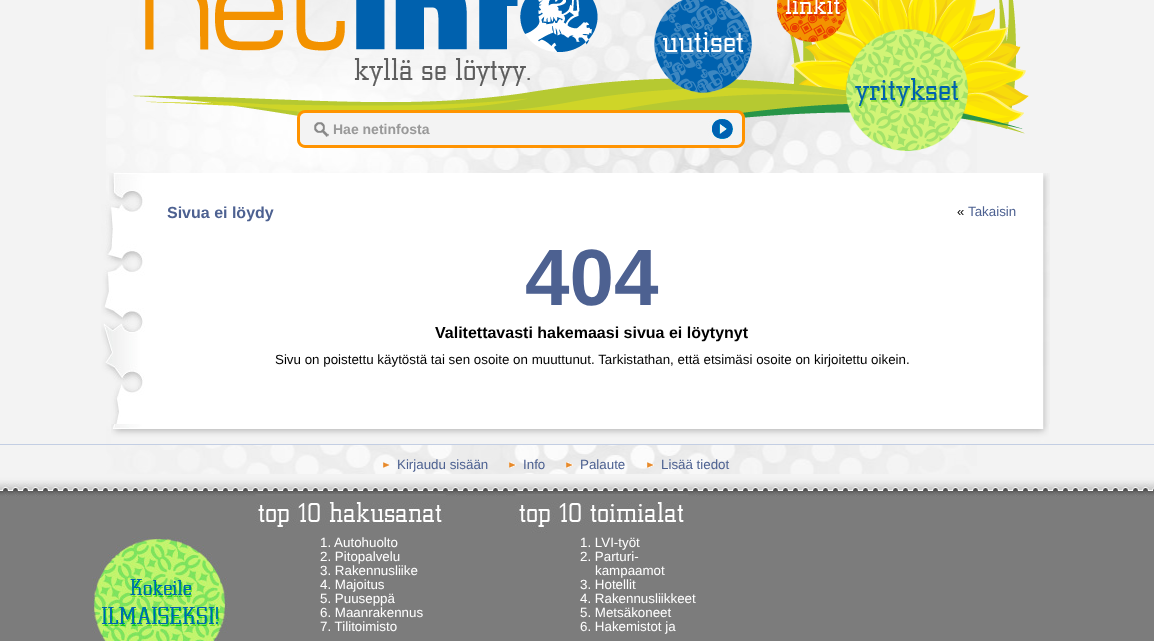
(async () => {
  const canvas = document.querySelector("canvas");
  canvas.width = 1154;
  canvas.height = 641;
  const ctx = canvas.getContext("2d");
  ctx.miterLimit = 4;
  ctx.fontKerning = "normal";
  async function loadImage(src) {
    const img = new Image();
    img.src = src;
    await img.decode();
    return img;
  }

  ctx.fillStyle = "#f3f3f3";
  ctx.fillRect(0, 0, 1154, 641);
  ctx.drawImage(await loadImage("img/1.png"), 106, 0, 871, 474);
  ctx.drawImage(await loadImage("img/2.png"), 133, 0, 896, 151);
  ctx.drawImage(await loadImage("img/3.png"), 297, 110, 11, 38);
  ctx.drawImage(await loadImage("img/4.png"), 308, 110, 400, 38);
  ctx.drawImage(await loadImage("img/5.png"), 314, 122, 15, 15);
  ctx.drawImage(await loadImage("img/6.png"), 708, 110, 27, 38);
  ctx.drawImage(await loadImage("img/7.png"), 735, 110, 10, 38);
  ctx.drawImage(await loadImage("img/8.png"), 109, 173, 941, 31);
  ctx.drawImage(await loadImage("img/9.png"), 101, 204, 949, 220);
  ctx.drawImage(await loadImage("img/10.png"), 111, 424, 938, 20);
  ctx.fillStyle = "#c3cee3";
  ctx.fillRect(0, 444, 1154, 1);
  ctx.drawImage(await loadImage("img/11.png"), 383, 462, 7, 6);
  ctx.drawImage(await loadImage("img/12.png"), 509, 462, 7, 6);
  ctx.drawImage(await loadImage("img/13.png"), 566, 462, 7, 6);
  ctx.drawImage(await loadImage("img/14.png"), 647, 462, 7, 6);
  ctx.fillStyle = "#7c7c7c";
  ctx.fillRect(0, 497, 1154, 144);
  ctx.drawImage(await loadImage("img/15.png"), 0, 474, 1154, 23);
  ctx.drawImage(await loadImage("img/16.png"), 255, 494, 190, 36);
  ctx.drawImage(await loadImage("img/17.png"), 515, 494, 173, 39);
  ctx.drawImage(await loadImage("img/18.png"), 92, 537, 136, 104);
  ctx.font = "bold 14px Liberation Sans";
  ctx.fillStyle = "#999999";
  ctx.fillText("Hae netinfosta", 333, 134);
  ctx.font = "bold 16px Liberation Sans";
  ctx.fillStyle = "#4d6191";
  ctx.fillText("Sivua ei löydy", 167, 218);
  ctx.font = "13.35px Liberation Sans";
  ctx.fillStyle = "#000000";
  ctx.fillText("«", 957, 216);
  ctx.fillStyle = "#4d6191";
  ctx.fillText("Takaisin", 968, 216);
  ctx.font = "bold 80px Liberation Sans";
  ctx.fillText("404", 525, 305);
  ctx.font = "bold 16px Liberation Sans";
  ctx.fillStyle = "#000000";
  ctx.fillText("Valitettavasti hakemaasi sivua ei löytynyt", 435, 338);
  ctx.font = "13.35px Liberation Sans";
  ctx.fillText("Sivu on poistettu käytöstä tai sen osoite on muuttunut. Tarkistathan, että etsimäsi osoite on kirjoitettu oikein.", 275, 364);
  ctx.fillStyle = "#4d6191";
  for (const [text, x, y] of [
    ["Kirjaudu sisään", 397, 469],
    ["Info", 523, 469],
    ["Palaute", 580, 469],
    ["Lisää tiedot", 661, 469],
  ]) {
    ctx.fillText(text, x, y);
  }
  ctx.fillStyle = "#ffffff";
  for (const [text, x, y] of [
    ["1. Autohuolto", 320, 547],
    ["2. Pitopalvelu", 320, 561],
    ["3. Rakennusliike", 320, 575],
    ["4. Majoitus", 320, 589],
    ["5. Puuseppä", 320, 603],
    ["6. Maanrakennus", 320, 617],
    ["7. Tilitoimisto", 320, 631],
    ["1. LVI-työt", 580, 547],
    ["2. Parturi-", 580, 561],
    ["kampaamot", 595, 575],
    ["3. Hotellit", 580, 589],
    ["4. Rakennusliikkeet", 580, 603],
    ["5. Metsäkoneet", 580, 617],
    ["6. Hakemistot ja", 580, 631],
  ]) {
    ctx.fillText(text, x, y);
  }
})();
